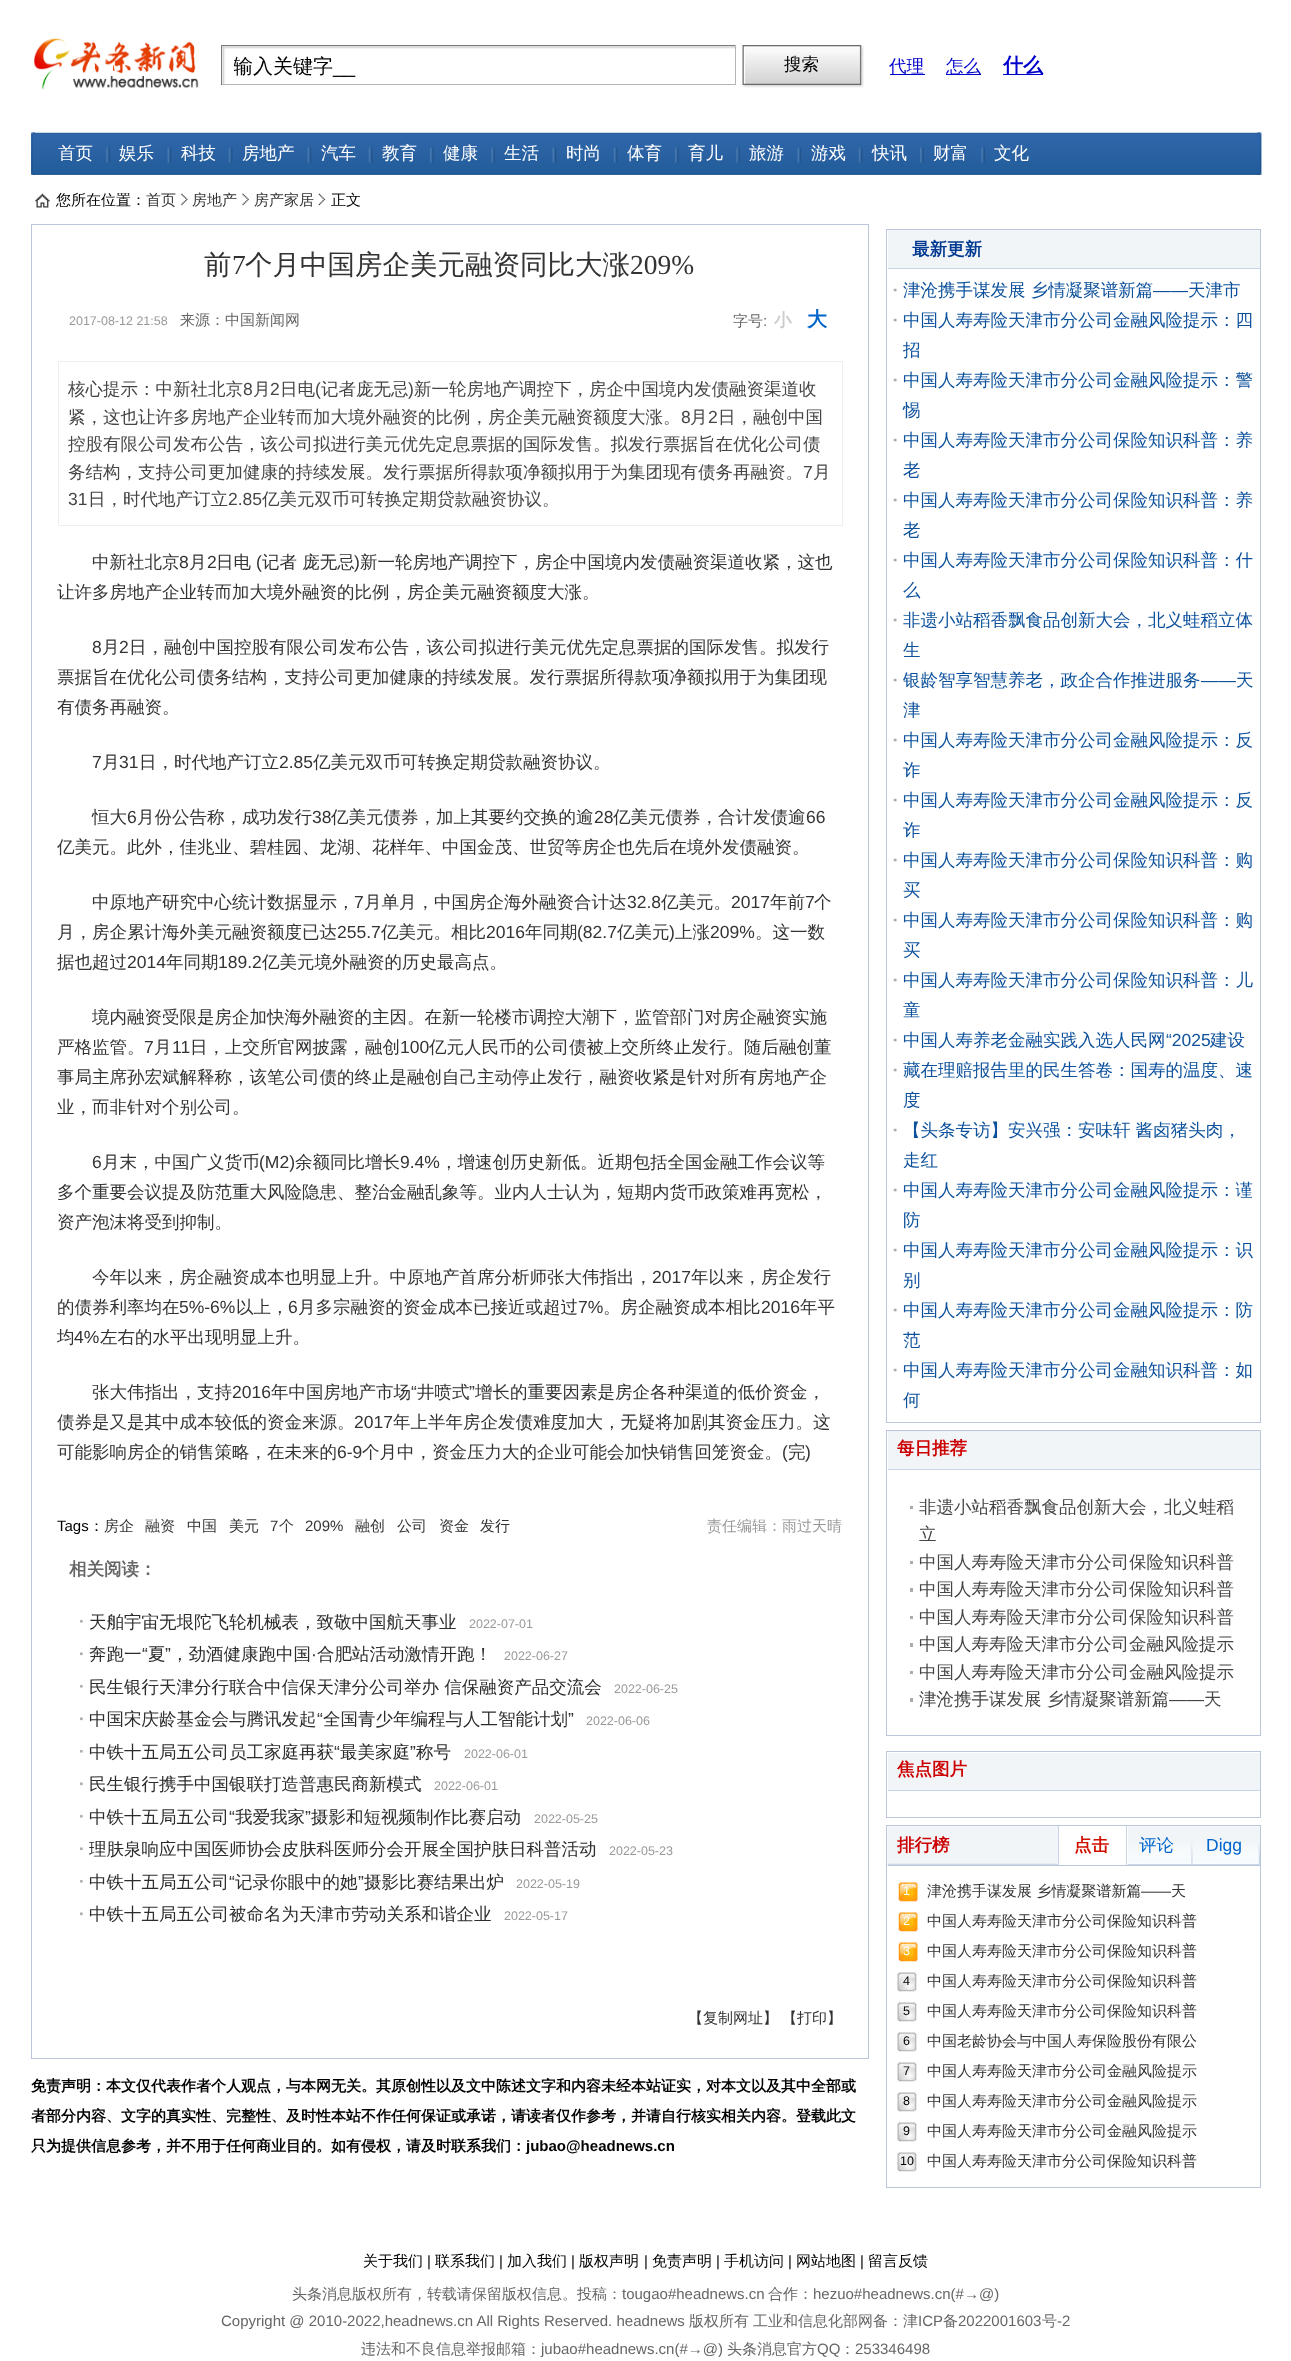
(async () => {
  const canvas = document.querySelector("canvas");
  canvas.width = 1291;
  canvas.height = 2361;
  const ctx = canvas.getContext("2d");
  ctx.miterLimit = 4;
  ctx.fontKerning = "normal";
  async function loadImage(src) {
    const img = new Image();
    img.src = src;
    await img.decode();
    return img;
  }

  ctx.fillStyle = "#ffffff";
  ctx.fillRect(0, 0, 1291, 2361);
  ctx.drawImage(await loadImage("img/1.png"), 33, 38, 166, 52);
  ctx.drawImage(await loadImage("img/2.png"), 222, 46, 515, 39);
  for (const [x, y, w, h, color] of [
    [221, 45, 515, 1, "#7b7b7b"],
    [735, 45, 1, 40, "#b6b6b6"],
    [221, 84, 515, 1, "#b6b6b6"],
    [221, 45, 1, 40, "#7b7b7b"],
  ]) {
    ctx.fillStyle = color;
    ctx.fillRect(x, y, w, h);
  }
  ctx.drawImage(await loadImage("img/3.png"), 742, 45, 122, 43);
  ctx.drawImage(await loadImage("img/4.png"), 742, 45, 120, 40);
  for (const [x, y, w, h, color] of [
    [890, 74, 35, 1, "#0000cc"],
    [946, 74, 35, 1, "#0000cc"],
    [1003, 74, 40, 1, "#0000cc"],
  ]) {
    ctx.fillStyle = color;
    ctx.fillRect(x, y, w, h);
  }
  ctx.drawImage(await loadImage("img/5.png"), 31, 132, 1231, 43);
  ctx.drawImage(await loadImage("img/6.png"), 31, 132, 4, 43);
  ctx.drawImage(await loadImage("img/7.png"), 106, 147, 4, 16);
  ctx.drawImage(await loadImage("img/8.png"), 167, 147, 5, 16);
  ctx.drawImage(await loadImage("img/9.png"), 228, 147, 5, 16);
  ctx.drawImage(await loadImage("img/8.png"), 307, 147, 5, 16);
  ctx.drawImage(await loadImage("img/10.png"), 368, 147, 5, 16);
  ctx.drawImage(await loadImage("img/11.png"), 430, 147, 4, 16);
  ctx.drawImage(await loadImage("img/7.png"), 491, 147, 4, 16);
  ctx.drawImage(await loadImage("img/12.png"), 552, 147, 5, 16);
  ctx.drawImage(await loadImage("img/10.png"), 613, 147, 5, 16);
  ctx.drawImage(await loadImage("img/11.png"), 675, 147, 4, 16);
  ctx.drawImage(await loadImage("img/7.png"), 736, 147, 4, 16);
  ctx.drawImage(await loadImage("img/8.png"), 797, 147, 5, 16);
  ctx.drawImage(await loadImage("img/13.png"), 858, 147, 5, 16);
  ctx.drawImage(await loadImage("img/14.png"), 920, 147, 4, 16);
  ctx.drawImage(await loadImage("img/7.png"), 981, 147, 4, 16);
  ctx.drawImage(await loadImage("img/15.png"), 1257, 132, 5, 43);
  ctx.drawImage(await loadImage("img/16.png"), 35, 193, 15, 15);
  ctx.drawImage(await loadImage("img/17.png"), 181, 193, 7, 13);
  ctx.drawImage(await loadImage("img/18.png"), 242, 193, 7, 13);
  ctx.drawImage(await loadImage("img/19.png"), 318, 193, 8, 13);
  ctx.strokeStyle = "#bac6da";
  ctx.strokeRect(31.5, 224.5, 837, 1834);
  ctx.strokeStyle = "#eeeeee";
  ctx.strokeRect(58.5, 361.5, 784, 164);
  ctx.drawImage(await loadImage("img/20.png"), 80, 1619, 3, 4);
  ctx.drawImage(await loadImage("img/21.png"), 80, 1652, 3, 4);
  ctx.drawImage(await loadImage("img/20.png"), 80, 1684, 3, 4);
  ctx.drawImage(await loadImage("img/21.png"), 80, 1717, 3, 4);
  ctx.drawImage(await loadImage("img/20.png"), 80, 1749, 3, 4);
  ctx.drawImage(await loadImage("img/21.png"), 80, 1782, 3, 4);
  ctx.drawImage(await loadImage("img/20.png"), 80, 1814, 3, 4);
  ctx.drawImage(await loadImage("img/21.png"), 80, 1847, 3, 4);
  ctx.drawImage(await loadImage("img/20.png"), 80, 1879, 3, 4);
  ctx.drawImage(await loadImage("img/21.png"), 80, 1912, 3, 4);
  ctx.strokeStyle = "#bac6da";
  ctx.strokeRect(886.5, 229.5, 374, 1193);
  ctx.fillStyle = "#f2f5f8";
  ctx.fillRect(888, 230, 372, 38);
  ctx.fillStyle = "#c6d6e6";
  ctx.fillRect(888, 268, 372, 1);
  ctx.drawImage(await loadImage("img/22.png"), 893, 288, 4, 4);
  ctx.drawImage(await loadImage("img/22.png"), 893, 318, 4, 4);
  ctx.drawImage(await loadImage("img/22.png"), 893, 378, 4, 4);
  ctx.drawImage(await loadImage("img/22.png"), 893, 438, 4, 4);
  ctx.drawImage(await loadImage("img/22.png"), 893, 498, 4, 4);
  ctx.drawImage(await loadImage("img/22.png"), 893, 558, 4, 4);
  ctx.drawImage(await loadImage("img/22.png"), 893, 618, 4, 4);
  ctx.drawImage(await loadImage("img/22.png"), 893, 678, 4, 4);
  ctx.drawImage(await loadImage("img/22.png"), 893, 738, 4, 4);
  ctx.drawImage(await loadImage("img/22.png"), 893, 798, 4, 4);
  ctx.drawImage(await loadImage("img/22.png"), 893, 858, 4, 4);
  ctx.drawImage(await loadImage("img/22.png"), 893, 918, 4, 4);
  ctx.drawImage(await loadImage("img/22.png"), 893, 978, 4, 4);
  ctx.drawImage(await loadImage("img/22.png"), 893, 1038, 4, 4);
  ctx.drawImage(await loadImage("img/22.png"), 893, 1068, 4, 4);
  ctx.drawImage(await loadImage("img/22.png"), 893, 1128, 4, 4);
  ctx.drawImage(await loadImage("img/22.png"), 893, 1188, 4, 4);
  ctx.drawImage(await loadImage("img/22.png"), 893, 1248, 4, 4);
  ctx.drawImage(await loadImage("img/22.png"), 893, 1308, 4, 4);
  ctx.drawImage(await loadImage("img/22.png"), 893, 1368, 4, 4);
  ctx.strokeRect(886.5, 1430.5, 374, 305);
  for (const [x, y, w, h, color] of [
    [888, 1431, 372, 38, "#f2f5f8"],
    [888, 1469, 372, 1, "#c6d6e6"],
    [910, 1506, 3, 3, "#aaaaaa"],
    [910, 1561, 3, 3, "#aaaaaa"],
    [910, 1588, 3, 4, "#ababab"],
    [910, 1616, 3, 3, "#aaaaaa"],
    [910, 1643, 3, 4, "#ababab"],
    [910, 1671, 3, 3, "#aaaaaa"],
    [910, 1698, 3, 4, "#ababab"],
  ]) {
    ctx.fillStyle = color;
    ctx.fillRect(x, y, w, h);
  }
  ctx.strokeRect(886.5, 1751.5, 374, 66);
  ctx.fillStyle = "#f2f5f8";
  ctx.fillRect(888, 1753, 372, 37);
  ctx.fillStyle = "#c6d6e6";
  ctx.fillRect(888, 1790, 372, 1);
  ctx.strokeRect(886.5, 1825.5, 374, 362);
  ctx.drawImage(await loadImage("img/23.png"), 887, 1826, 373, 40);
  ctx.fillStyle = "#bac6da";
  ctx.fillRect(888, 1865, 372, 1);
  ctx.drawImage(await loadImage("img/24.png"), 1057, 1843, 203, 21);
  for (const [x, y, w, h, color] of [
    [1059, 1826, 69, 39, "#ffffff"],
    [1126, 1826, 1, 39, "#c6d6e6"],
    [1058, 1826, 1, 39, "#c6d6e6"],
  ]) {
    ctx.fillStyle = color;
    ctx.fillRect(x, y, w, h);
  }
  ctx.drawImage(await loadImage("img/25.png"), 898, 1882, 20, 20);
  ctx.drawImage(await loadImage("img/25.png"), 898, 1912, 20, 20);
  ctx.drawImage(await loadImage("img/25.png"), 898, 1942, 20, 20);
  ctx.drawImage(await loadImage("img/26.png"), 897, 1972, 20, 20);
  ctx.drawImage(await loadImage("img/26.png"), 897, 2002, 20, 20);
  ctx.drawImage(await loadImage("img/26.png"), 897, 2032, 20, 20);
  ctx.drawImage(await loadImage("img/26.png"), 897, 2062, 20, 20);
  ctx.drawImage(await loadImage("img/26.png"), 897, 2092, 20, 20);
  ctx.drawImage(await loadImage("img/26.png"), 897, 2122, 20, 20);
  ctx.drawImage(await loadImage("img/26.png"), 897, 2152, 20, 20);
  ctx.save();
  ctx.beginPath();
  ctx.rect(234, 53, 489, 27);
  ctx.clip();
  ctx.font = "500 20px WenQuanYi Zen Hei";
  ctx.fillStyle = "#000000";
  ctx.fillText("输入关键字", 233, 73);
  ctx.restore();
  ctx.font = "20px Liberation Sans";
  ctx.fillStyle = "#000000";
  ctx.fillText("__", 333, 73);
  ctx.font = "500 17.5px WenQuanYi Zen Hei";
  ctx.fillText("搜索", 784, 70);
  ctx.fillStyle = "#0000cc";
  ctx.fillText("代理", 889, 72);
  ctx.fillText("怎么", 946, 72);
  ctx.font = "bold 20px WenQuanYi Zen Hei";
  ctx.fillText("什么", 1003, 72);
  ctx.font = "500 17.5px WenQuanYi Zen Hei";
  ctx.fillStyle = "#ffffff";
  for (const [text, x, y] of [
    ["首页", 58, 159],
    ["娱乐", 119, 159],
    ["科技", 181, 159],
    ["房地产", 242, 159],
    ["汽车", 321, 159],
    ["教育", 382, 159],
    ["健康", 443, 159],
    ["生活", 504, 159],
    ["时尚", 566, 159],
    ["体育", 627, 159],
    ["育儿", 688, 159],
    ["旅游", 749, 159],
    ["游戏", 811, 159],
    ["快讯", 872, 159],
    ["财富", 933, 159],
    ["文化", 994, 159],
  ]) {
    ctx.fillText(text, x, y);
  }
  ctx.font = "500 15px WenQuanYi Zen Hei";
  ctx.fillStyle = "#000000";
  ctx.fillText("您所在位置：", 56, 205);
  ctx.fillStyle = "#333333";
  for (const [text, x, y] of [
    ["首页", 146, 205],
    ["房地产", 192, 205],
    ["房产家居", 254, 205],
  ]) {
    ctx.fillText(text, x, y);
  }
  ctx.fillStyle = "#000000";
  ctx.fillText("正文", 331, 205);
  ctx.font = "500 27.5px WenQuanYi Zen Hei";
  ctx.fillStyle = "#333333";
  ctx.fillText("前", 204, 274);
  ctx.font = "27.5px Liberation Serif";
  ctx.fillText("7", 232, 274);
  ctx.font = "500 27.5px WenQuanYi Zen Hei";
  ctx.fillText("个月中国房企美元融资同比大涨", 245, 274);
  ctx.font = "27.5px Liberation Serif";
  ctx.fillText("209%", 630, 274);
  ctx.font = "12.5px Liberation Sans";
  ctx.fillStyle = "#999999";
  ctx.fillText("2017-08-12 21:58", 69, 325);
  ctx.font = "500 15px WenQuanYi Zen Hei";
  ctx.fillStyle = "#666666";
  ctx.fillText("来源：中国新闻网", 180, 325);
  ctx.fillText("字号", 733, 326);
  ctx.font = "15px Liberation Sans";
  ctx.fillText(":", 763, 326);
  ctx.font = "bold 17.5px WenQuanYi Zen Hei";
  ctx.fillStyle = "#cccccc";
  ctx.fillText("小", 774, 326);
  ctx.font = "bold 20px WenQuanYi Zen Hei";
  ctx.fillStyle = "#0066cc";
  ctx.fillText("大", 807, 326);
  ctx.font = "500 17.5px WenQuanYi Zen Hei";
  ctx.fillStyle = "#454545";
  ctx.fillText("核心提示：中新社北京", 68, 395);
  ctx.font = "17.5px Liberation Sans";
  ctx.fillText("8", 243, 395);
  ctx.font = "500 17.5px WenQuanYi Zen Hei";
  ctx.fillText("月", 253, 395);
  ctx.font = "17.5px Liberation Sans";
  ctx.fillText("2", 270, 395);
  ctx.font = "500 17.5px WenQuanYi Zen Hei";
  ctx.fillText("日电", 280, 395);
  ctx.font = "17.5px Liberation Sans";
  ctx.fillText("(", 315, 395);
  ctx.font = "500 17.5px WenQuanYi Zen Hei";
  ctx.fillText("记者庞无忌", 321, 395);
  ctx.font = "17.5px Liberation Sans";
  ctx.fillText(")", 408, 395);
  ctx.font = "500 17.5px WenQuanYi Zen Hei";
  ctx.fillText("新一轮房地产调控下，房企中国境内发债融资渠道收", 414, 395);
  ctx.fillText("紧，这也让许多房地产企业转而加大境外融资的比例，房企美元融资额度大涨。", 68, 423);
  ctx.font = "17.5px Liberation Sans";
  ctx.fillText("8", 681, 423);
  ctx.font = "500 17.5px WenQuanYi Zen Hei";
  ctx.fillText("月", 690, 423);
  ctx.font = "17.5px Liberation Sans";
  ctx.fillText("2", 708, 423);
  ctx.font = "500 17.5px WenQuanYi Zen Hei";
  for (const [text, x, y] of [
    ["日，融创中国", 718, 423],
    ["控股有限公司发布公告，该公司拟进行美元优先定息票据的国际发售。拟发行票据旨在优化公司债", 68, 450],
    ["务结构，支持公司更加健康的持续发展。发行票据所得款项净额拟用于为集团现有债务再融资。", 68, 478],
  ]) {
    ctx.fillText(text, x, y);
  }
  ctx.font = "17.5px Liberation Sans";
  ctx.fillText("7", 803, 478);
  ctx.font = "500 17.5px WenQuanYi Zen Hei";
  ctx.fillText("月", 813, 478);
  ctx.font = "17.5px Liberation Sans";
  ctx.fillText("31", 68, 505);
  ctx.font = "500 17.5px WenQuanYi Zen Hei";
  ctx.fillText("日，时代地产订立", 88, 505);
  ctx.font = "17.5px Liberation Sans";
  ctx.fillText("2.85", 228, 505);
  ctx.font = "500 17.5px WenQuanYi Zen Hei";
  ctx.fillText("亿美元双币可转换定期贷款融资协议。", 262, 505);
  ctx.fillStyle = "#333333";
  ctx.fillText("中新社北京", 92, 568);
  ctx.font = "17.5px Liberation Sans";
  ctx.fillText("8", 179, 568);
  ctx.font = "500 17.5px WenQuanYi Zen Hei";
  ctx.fillText("月", 189, 568);
  ctx.font = "17.5px Liberation Sans";
  ctx.fillText("2", 207, 568);
  ctx.font = "500 17.5px WenQuanYi Zen Hei";
  ctx.fillText("日电", 216, 568);
  ctx.font = "17.5px Liberation Sans";
  ctx.fillText("(", 256, 568);
  ctx.font = "500 17.5px WenQuanYi Zen Hei";
  ctx.fillText("记者 庞无忌", 262, 568);
  ctx.font = "17.5px Liberation Sans";
  ctx.fillText(")", 354, 568);
  ctx.font = "500 17.5px WenQuanYi Zen Hei";
  ctx.fillText("新一轮房地产调控下，房企中国境内发债融资渠道收紧，这也", 360, 568);
  ctx.fillText("让许多房地产企业转而加大境外融资的比例，房企美元融资额度大涨。", 57, 598);
  ctx.font = "17.5px Liberation Sans";
  ctx.fillText("8", 92, 653);
  ctx.font = "500 17.5px WenQuanYi Zen Hei";
  ctx.fillText("月", 102, 653);
  ctx.font = "17.5px Liberation Sans";
  ctx.fillText("2", 119, 653);
  ctx.font = "500 17.5px WenQuanYi Zen Hei";
  for (const [text, x, y] of [
    ["日，融创中国控股有限公司发布公告，该公司拟进行美元优先定息票据的国际发售。拟发行", 129, 653],
    ["票据旨在优化公司债务结构，支持公司更加健康的持续发展。发行票据所得款项净额拟用于为集团现", 57, 683],
    ["有债务再融资。", 57, 713],
  ]) {
    ctx.fillText(text, x, y);
  }
  ctx.font = "17.5px Liberation Sans";
  ctx.fillText("7", 92, 768);
  ctx.font = "500 17.5px WenQuanYi Zen Hei";
  ctx.fillText("月", 102, 768);
  ctx.font = "17.5px Liberation Sans";
  ctx.fillText("31", 119, 768);
  ctx.font = "500 17.5px WenQuanYi Zen Hei";
  ctx.fillText("日，时代地产订立", 139, 768);
  ctx.font = "17.5px Liberation Sans";
  ctx.fillText("2.85", 279, 768);
  ctx.font = "500 17.5px WenQuanYi Zen Hei";
  ctx.fillText("亿美元双币可转换定期贷款融资协议。", 313, 768);
  ctx.fillText("恒大", 92, 823);
  ctx.font = "17.5px Liberation Sans";
  ctx.fillText("6", 127, 823);
  ctx.font = "500 17.5px WenQuanYi Zen Hei";
  ctx.fillText("月份公告称，成功发行", 137, 823);
  ctx.font = "17.5px Liberation Sans";
  ctx.fillText("38", 312, 823);
  ctx.font = "500 17.5px WenQuanYi Zen Hei";
  ctx.fillText("亿美元债券，加上其要约交换的逾", 331, 823);
  ctx.font = "17.5px Liberation Sans";
  ctx.fillText("28", 594, 823);
  ctx.font = "500 17.5px WenQuanYi Zen Hei";
  ctx.fillText("亿美元债券，合计发债逾", 613, 823);
  ctx.font = "17.5px Liberation Sans";
  ctx.fillText("66", 806, 823);
  ctx.font = "500 17.5px WenQuanYi Zen Hei";
  ctx.fillText("亿美元。此外，佳兆业、碧桂园、龙湖、花样年、中国金茂、世贸等房企也先后在境外发债融资。", 57, 853);
  ctx.fillText("中原地产研究中心统计数据显示，", 92, 908);
  ctx.font = "17.5px Liberation Sans";
  ctx.fillText("7", 354, 908);
  ctx.font = "500 17.5px WenQuanYi Zen Hei";
  ctx.fillText("月单月，中国房企海外融资合计达", 364, 908);
  ctx.font = "17.5px Liberation Sans";
  ctx.fillText("32.8", 627, 908);
  ctx.font = "500 17.5px WenQuanYi Zen Hei";
  ctx.fillText("亿美元。", 661, 908);
  ctx.font = "17.5px Liberation Sans";
  ctx.fillText("2017", 731, 908);
  ctx.font = "500 17.5px WenQuanYi Zen Hei";
  ctx.fillText("年前", 770, 908);
  ctx.font = "17.5px Liberation Sans";
  ctx.fillText("7", 805, 908);
  ctx.font = "500 17.5px WenQuanYi Zen Hei";
  ctx.fillText("个", 814, 908);
  ctx.fillText("月，房企累计海外美元融资额度已达", 57, 938);
  ctx.font = "17.5px Liberation Sans";
  ctx.fillText("255.7", 337, 938);
  ctx.font = "500 17.5px WenQuanYi Zen Hei";
  ctx.fillText("亿美元。相比", 381, 938);
  ctx.font = "17.5px Liberation Sans";
  ctx.fillText("2016", 486, 938);
  ctx.font = "500 17.5px WenQuanYi Zen Hei";
  ctx.fillText("年同期", 525, 938);
  ctx.font = "17.5px Liberation Sans";
  ctx.fillText("(82.7", 577, 938);
  ctx.font = "500 17.5px WenQuanYi Zen Hei";
  ctx.fillText("亿美元", 617, 938);
  ctx.font = "17.5px Liberation Sans";
  ctx.fillText(")", 669, 938);
  ctx.font = "500 17.5px WenQuanYi Zen Hei";
  ctx.fillText("上涨", 675, 938);
  ctx.font = "17.5px Liberation Sans";
  ctx.fillText("209%", 710, 938);
  ctx.font = "500 17.5px WenQuanYi Zen Hei";
  ctx.fillText("。这一数", 755, 938);
  ctx.fillText("据也超过", 57, 968);
  ctx.font = "17.5px Liberation Sans";
  ctx.fillText("2014", 127, 968);
  ctx.font = "500 17.5px WenQuanYi Zen Hei";
  ctx.fillText("年同期", 166, 968);
  ctx.font = "17.5px Liberation Sans";
  ctx.fillText("189.2", 218, 968);
  ctx.font = "500 17.5px WenQuanYi Zen Hei";
  for (const [text, x, y] of [
    ["亿美元境外融资的历史最高点。", 262, 968],
    ["境内融资受限是房企加快海外融资的主因。在新一轮楼市调控大潮下，监管部门对房企融资实施", 92, 1023],
    ["严格监管。", 57, 1053],
  ]) {
    ctx.fillText(text, x, y);
  }
  ctx.font = "17.5px Liberation Sans";
  ctx.fillText("7", 144, 1053);
  ctx.font = "500 17.5px WenQuanYi Zen Hei";
  ctx.fillText("月", 154, 1053);
  ctx.font = "17.5px Liberation Sans";
  ctx.fillText("11", 172, 1053);
  ctx.font = "500 17.5px WenQuanYi Zen Hei";
  ctx.fillText("日，上交所官网披露，融创", 190, 1053);
  ctx.font = "17.5px Liberation Sans";
  ctx.fillText("100", 400, 1053);
  ctx.font = "500 17.5px WenQuanYi Zen Hei";
  for (const [text, x, y] of [
    ["亿元人民币的公司债被上交所终止发行。随后融创董", 429, 1053],
    ["事局主席孙宏斌解释称，该笔公司债的终止是融创自己主动停止发行，融资收紧是针对所有房地产企", 57, 1083],
    ["业，而非针对个别公司。", 57, 1113],
  ]) {
    ctx.fillText(text, x, y);
  }
  ctx.font = "17.5px Liberation Sans";
  ctx.fillText("6", 92, 1168);
  ctx.font = "500 17.5px WenQuanYi Zen Hei";
  ctx.fillText("月末，中国广义货币", 102, 1168);
  ctx.font = "17.5px Liberation Sans";
  ctx.fillText("(M2)", 259, 1168);
  ctx.font = "500 17.5px WenQuanYi Zen Hei";
  ctx.fillText("余额同比增长", 295, 1168);
  ctx.font = "17.5px Liberation Sans";
  ctx.fillText("9.4%", 400, 1168);
  ctx.font = "500 17.5px WenQuanYi Zen Hei";
  for (const [text, x, y] of [
    ["，增速创历史新低。近期包括全国金融工作会议等", 440, 1168],
    ["多个重要会议提及防范重大风险隐患、整治金融乱象等。业内人士认为，短期内货币政策难再宽松，", 57, 1198],
    ["资产泡沫将受到抑制。", 57, 1228],
    ["今年以来，房企融资成本也明显上升。中原地产首席分析师张大伟指出，", 92, 1283],
  ]) {
    ctx.fillText(text, x, y);
  }
  ctx.font = "17.5px Liberation Sans";
  ctx.fillText("2017", 652, 1283);
  ctx.font = "500 17.5px WenQuanYi Zen Hei";
  ctx.fillText("年以来，房企发行", 691, 1283);
  ctx.fillText("的债券利率均在", 57, 1313);
  ctx.font = "17.5px Liberation Sans";
  ctx.fillText("5%-6%", 179, 1313);
  ctx.font = "500 17.5px WenQuanYi Zen Hei";
  ctx.fillText("以上，", 236, 1313);
  ctx.font = "17.5px Liberation Sans";
  ctx.fillText("6", 288, 1313);
  ctx.font = "500 17.5px WenQuanYi Zen Hei";
  ctx.fillText("月多宗融资的资金成本已接近或超过", 298, 1313);
  ctx.font = "17.5px Liberation Sans";
  ctx.fillText("7%", 578, 1313);
  ctx.font = "500 17.5px WenQuanYi Zen Hei";
  ctx.fillText("。房企融资成本相比", 603, 1313);
  ctx.font = "17.5px Liberation Sans";
  ctx.fillText("2016", 761, 1313);
  ctx.font = "500 17.5px WenQuanYi Zen Hei";
  ctx.fillText("年平", 800, 1313);
  ctx.fillText("均", 57, 1343);
  ctx.font = "17.5px Liberation Sans";
  ctx.fillText("4%", 74, 1343);
  ctx.font = "500 17.5px WenQuanYi Zen Hei";
  ctx.fillText("左右的水平出现明显上升。", 100, 1343);
  ctx.fillText("张大伟指出，支持", 92, 1398);
  ctx.font = "17.5px Liberation Sans";
  ctx.fillText("2016", 232, 1398);
  ctx.font = "500 17.5px WenQuanYi Zen Hei";
  ctx.fillText("年中国房地产市场", 271, 1398);
  ctx.font = "17.5px Liberation Sans";
  ctx.fillText("“", 411, 1398);
  ctx.font = "500 17.5px WenQuanYi Zen Hei";
  ctx.fillText("井喷式", 417, 1398);
  ctx.font = "17.5px Liberation Sans";
  ctx.fillText("”", 469, 1398);
  ctx.font = "500 17.5px WenQuanYi Zen Hei";
  ctx.fillText("增长的重要因素是房企各种渠道的低价资金，", 475, 1398);
  ctx.fillText("债券是又是其中成本较低的资金来源。", 57, 1428);
  ctx.font = "17.5px Liberation Sans";
  ctx.fillText("2017", 354, 1428);
  ctx.font = "500 17.5px WenQuanYi Zen Hei";
  ctx.fillText("年上半年房企发债难度加大，无疑将加剧其资金压力。这", 393, 1428);
  ctx.fillText("可能影响房企的销售策略，在未来的", 57, 1458);
  ctx.font = "17.5px Liberation Sans";
  ctx.fillText("6-9", 337, 1458);
  ctx.font = "500 17.5px WenQuanYi Zen Hei";
  ctx.fillText("个月中，资金压力大的企业可能会加快销售回笼资金。", 362, 1458);
  ctx.font = "17.5px Liberation Sans";
  ctx.fillText("(", 782, 1458);
  ctx.font = "500 17.5px WenQuanYi Zen Hei";
  ctx.fillText("完", 788, 1458);
  ctx.font = "17.5px Liberation Sans";
  ctx.fillText(")", 805, 1458);
  ctx.font = "15px Liberation Sans";
  ctx.fillStyle = "#000000";
  ctx.fillText("Tags", 57, 1531);
  ctx.font = "500 15px WenQuanYi Zen Hei";
  ctx.fillText("：", 89, 1531);
  ctx.fillStyle = "#333333";
  for (const [text, x, y] of [
    ["房企", 104, 1531],
    ["融资", 145, 1531],
    ["中国", 187, 1531],
    ["美元", 229, 1531],
  ]) {
    ctx.fillText(text, x, y);
  }
  ctx.font = "15px Liberation Sans";
  ctx.fillText("7", 270, 1531);
  ctx.font = "500 15px WenQuanYi Zen Hei";
  ctx.fillText("个", 279, 1531);
  ctx.font = "15px Liberation Sans";
  ctx.fillText("209%", 305, 1531);
  ctx.font = "500 15px WenQuanYi Zen Hei";
  for (const [text, x, y] of [
    ["融创", 355, 1531],
    ["公司", 397, 1531],
    ["资金", 439, 1531],
    ["发行", 480, 1531],
  ]) {
    ctx.fillText(text, x, y);
  }
  ctx.fillStyle = "#999999";
  ctx.fillText("责任编辑：雨过天晴", 707, 1531);
  ctx.font = "bold 17.5px WenQuanYi Zen Hei";
  ctx.fillStyle = "#666666";
  ctx.fillText("相关阅读：", 69, 1575);
  ctx.font = "500 17.5px WenQuanYi Zen Hei";
  ctx.fillStyle = "#2c2c2c";
  ctx.fillText("天舶宇宙无垠陀飞轮机械表，致敬中国航天事业", 89, 1628);
  ctx.font = "12.5px Liberation Sans";
  ctx.fillStyle = "#999999";
  ctx.fillText("2022-07-01", 469, 1628);
  ctx.font = "500 17.5px WenQuanYi Zen Hei";
  ctx.fillStyle = "#2c2c2c";
  ctx.fillText("奔跑一", 89, 1660);
  ctx.font = "17.5px Liberation Sans";
  ctx.fillText("“", 142, 1660);
  ctx.font = "500 17.5px WenQuanYi Zen Hei";
  ctx.fillText("夏", 148, 1660);
  ctx.font = "17.5px Liberation Sans";
  ctx.fillText("”", 165, 1660);
  ctx.font = "500 17.5px WenQuanYi Zen Hei";
  ctx.fillText("，劲酒健康跑中国", 171, 1660);
  ctx.fillText("合肥站活动激情开跑！", 317, 1660);
  ctx.font = "17.5px Liberation Sans";
  ctx.fillText("·", 311, 1660);
  ctx.font = "12.5px Liberation Sans";
  ctx.fillStyle = "#999999";
  ctx.fillText("2022-06-27", 504, 1660);
  ctx.font = "500 17.5px WenQuanYi Zen Hei";
  ctx.fillStyle = "#2c2c2c";
  ctx.fillText("民生银行天津分行联合中信保天津分公司举办 信保融资产品交流会", 89, 1693);
  ctx.font = "12.5px Liberation Sans";
  ctx.fillStyle = "#999999";
  ctx.fillText("2022-06-25", 614, 1693);
  ctx.font = "500 17.5px WenQuanYi Zen Hei";
  ctx.fillStyle = "#2c2c2c";
  ctx.fillText("中国宋庆龄基金会与腾讯发起", 89, 1725);
  ctx.font = "17.5px Liberation Sans";
  ctx.fillText("“", 317, 1725);
  ctx.font = "500 17.5px WenQuanYi Zen Hei";
  ctx.fillText("全国青少年编程与人工智能计划", 323, 1725);
  ctx.font = "17.5px Liberation Sans";
  ctx.fillText("”", 568, 1725);
  ctx.font = "12.5px Liberation Sans";
  ctx.fillStyle = "#999999";
  ctx.fillText("2022-06-06", 586, 1725);
  ctx.font = "500 17.5px WenQuanYi Zen Hei";
  ctx.fillStyle = "#2c2c2c";
  ctx.fillText("中铁十五局五公司员工家庭再获", 89, 1758);
  ctx.font = "17.5px Liberation Sans";
  ctx.fillText("“", 334, 1758);
  ctx.font = "500 17.5px WenQuanYi Zen Hei";
  ctx.fillText("最美家庭", 340, 1758);
  ctx.font = "17.5px Liberation Sans";
  ctx.fillText("”", 410, 1758);
  ctx.font = "500 17.5px WenQuanYi Zen Hei";
  ctx.fillText("称号", 416, 1758);
  ctx.font = "12.5px Liberation Sans";
  ctx.fillStyle = "#999999";
  ctx.fillText("2022-06-01", 464, 1758);
  ctx.font = "500 17.5px WenQuanYi Zen Hei";
  ctx.fillStyle = "#2c2c2c";
  ctx.fillText("民生银行携手中国银联打造普惠民商新模式", 89, 1790);
  ctx.font = "12.5px Liberation Sans";
  ctx.fillStyle = "#999999";
  ctx.fillText("2022-06-01", 434, 1790);
  ctx.font = "500 17.5px WenQuanYi Zen Hei";
  ctx.fillStyle = "#2c2c2c";
  ctx.fillText("中铁十五局五公司", 89, 1823);
  ctx.font = "17.5px Liberation Sans";
  ctx.fillText("“", 229, 1823);
  ctx.font = "500 17.5px WenQuanYi Zen Hei";
  ctx.fillText("我爱我家", 235, 1823);
  ctx.font = "17.5px Liberation Sans";
  ctx.fillText("”", 305, 1823);
  ctx.font = "500 17.5px WenQuanYi Zen Hei";
  ctx.fillText("摄影和短视频制作比赛启动", 311, 1823);
  ctx.font = "12.5px Liberation Sans";
  ctx.fillStyle = "#999999";
  ctx.fillText("2022-05-25", 534, 1823);
  ctx.font = "500 17.5px WenQuanYi Zen Hei";
  ctx.fillStyle = "#2c2c2c";
  ctx.fillText("理肤泉响应中国医师协会皮肤科医师分会开展全国护肤日科普活动", 89, 1855);
  ctx.font = "12.5px Liberation Sans";
  ctx.fillStyle = "#999999";
  ctx.fillText("2022-05-23", 609, 1855);
  ctx.font = "500 17.5px WenQuanYi Zen Hei";
  ctx.fillStyle = "#2c2c2c";
  ctx.fillText("中铁十五局五公司", 89, 1888);
  ctx.font = "17.5px Liberation Sans";
  ctx.fillText("“", 229, 1888);
  ctx.font = "500 17.5px WenQuanYi Zen Hei";
  ctx.fillText("记录你眼中的她", 235, 1888);
  ctx.font = "17.5px Liberation Sans";
  ctx.fillText("”", 358, 1888);
  ctx.font = "500 17.5px WenQuanYi Zen Hei";
  ctx.fillText("摄影比赛结果出炉", 364, 1888);
  ctx.font = "12.5px Liberation Sans";
  ctx.fillStyle = "#999999";
  ctx.fillText("2022-05-19", 516, 1888);
  ctx.font = "500 17.5px WenQuanYi Zen Hei";
  ctx.fillStyle = "#2c2c2c";
  ctx.fillText("中铁十五局五公司被命名为天津市劳动关系和谐企业", 89, 1920);
  ctx.font = "12.5px Liberation Sans";
  ctx.fillStyle = "#999999";
  ctx.fillText("2022-05-17", 504, 1920);
  ctx.font = "500 15px WenQuanYi Zen Hei";
  ctx.fillStyle = "#333333";
  ctx.fillText("【复制网址】", 688, 2023);
  ctx.fillText("【打印】", 782, 2023);
  ctx.font = "bold 15px WenQuanYi Zen Hei";
  ctx.fillStyle = "#000000";
  for (const [text, x, y] of [
    ["免责声明：本文仅代表作者个人观点，与本网无关。其原创性以及文中陈述文字和内容未经本站证实，对本文以及其中全部或", 31, 2091],
    ["者部分内容、文字的真实性、完整性、及时性本站不作任何保证或承诺，请读者仅作参考，并请自行核实相关内容。登载此文", 31, 2121],
    ["只为提供信息参考，并不用于任何商业目的。如有侵权，请及时联系我们：", 31, 2151],
  ]) {
    ctx.fillText(text, x, y);
  }
  ctx.font = "bold 15px Liberation Sans";
  ctx.fillText("jubao@headnews.cn", 526, 2151);
  ctx.font = "bold 17.5px WenQuanYi Zen Hei";
  ctx.fillStyle = "#003a90";
  ctx.fillText("最新更新", 912, 255);
  ctx.font = "500 17.5px WenQuanYi Zen Hei";
  ctx.fillStyle = "#0d519c";
  ctx.fillText("津沧携手谋发展 乡情凝聚谱新篇", 903, 296);
  ctx.font = "17.5px Liberation Sans";
  ctx.fillText("——", 1153, 296);
  ctx.font = "500 17.5px WenQuanYi Zen Hei";
  for (const [text, x, y] of [
    ["天津市", 1188, 296],
    ["中国人寿寿险天津市分公司金融风险提示：四", 903, 326],
    ["招", 903, 356],
    ["中国人寿寿险天津市分公司金融风险提示：警", 903, 386],
    ["惕", 903, 416],
    ["中国人寿寿险天津市分公司保险知识科普：养", 903, 446],
    ["老", 903, 476],
    ["中国人寿寿险天津市分公司保险知识科普：养", 903, 506],
    ["老", 903, 536],
    ["中国人寿寿险天津市分公司保险知识科普：什", 903, 566],
    ["么", 903, 596],
    ["非遗小站稻香飘食品创新大会，北义蛙稻立体", 903, 626],
    ["生", 903, 656],
    ["银龄智享智慧养老，政企合作推进服务", 903, 686],
  ]) {
    ctx.fillText(text, x, y);
  }
  ctx.font = "17.5px Liberation Sans";
  ctx.fillText("——", 1201, 686);
  ctx.font = "500 17.5px WenQuanYi Zen Hei";
  for (const [text, x, y] of [
    ["天", 1236, 686],
    ["津", 903, 716],
    ["中国人寿寿险天津市分公司金融风险提示：反", 903, 746],
    ["诈", 903, 776],
    ["中国人寿寿险天津市分公司金融风险提示：反", 903, 806],
    ["诈", 903, 836],
    ["中国人寿寿险天津市分公司保险知识科普：购", 903, 866],
    ["买", 903, 896],
    ["中国人寿寿险天津市分公司保险知识科普：购", 903, 926],
    ["买", 903, 956],
    ["中国人寿寿险天津市分公司保险知识科普：儿", 903, 986],
    ["童", 903, 1016],
    ["中国人寿养老金融实践入选人民网", 903, 1046],
  ]) {
    ctx.fillText(text, x, y);
  }
  ctx.font = "17.5px Liberation Sans";
  ctx.fillText("“2025", 1166, 1046);
  ctx.font = "500 17.5px WenQuanYi Zen Hei";
  for (const [text, x, y] of [
    ["建设", 1210, 1046],
    ["藏在理赔报告里的民生答卷：国寿的温度、速", 903, 1076],
    ["度", 903, 1106],
    ["【头条专访】安兴强：安味轩 酱卤猪头肉，", 903, 1136],
    ["走红", 903, 1166],
    ["中国人寿寿险天津市分公司金融风险提示：谨", 903, 1196],
    ["防", 903, 1226],
    ["中国人寿寿险天津市分公司金融风险提示：识", 903, 1256],
    ["别", 903, 1286],
    ["中国人寿寿险天津市分公司金融风险提示：防", 903, 1316],
    ["范", 903, 1346],
    ["中国人寿寿险天津市分公司金融知识科普：如", 903, 1376],
    ["何", 903, 1406],
  ]) {
    ctx.fillText(text, x, y);
  }
  ctx.font = "bold 17.5px WenQuanYi Zen Hei";
  ctx.fillStyle = "#cc0000";
  ctx.fillText("每日推荐", 897, 1454);
  ctx.font = "500 17.5px WenQuanYi Zen Hei";
  ctx.fillStyle = "#454545";
  for (const [text, x, y] of [
    ["非遗小站稻香飘食品创新大会，北义蛙稻", 919, 1513],
    ["立", 919, 1540],
    ["中国人寿寿险天津市分公司保险知识科普", 919, 1568],
    ["中国人寿寿险天津市分公司保险知识科普", 919, 1595],
    ["中国人寿寿险天津市分公司保险知识科普", 919, 1623],
    ["中国人寿寿险天津市分公司金融风险提示", 919, 1650],
    ["中国人寿寿险天津市分公司金融风险提示", 919, 1678],
    ["津沧携手谋发展 乡情凝聚谱新篇", 919, 1705],
  ]) {
    ctx.fillText(text, x, y);
  }
  ctx.font = "17.5px Liberation Sans";
  ctx.fillText("——", 1169, 1705);
  ctx.font = "500 17.5px WenQuanYi Zen Hei";
  ctx.fillText("天", 1204, 1705);
  ctx.font = "bold 17.5px WenQuanYi Zen Hei";
  ctx.fillStyle = "#cc0000";
  ctx.fillText("焦点图片", 897, 1775);
  ctx.fillText("排行榜", 897, 1851);
  ctx.fillStyle = "#cf1000";
  ctx.fillText("点击", 1074, 1851);
  ctx.font = "500 17.5px WenQuanYi Zen Hei";
  ctx.fillStyle = "#0066cc";
  ctx.fillText("评论", 1139, 1851);
  ctx.font = "17.5px Liberation Sans";
  ctx.fillText("Digg", 1206, 1851);
  ctx.font = "12.5px Liberation Sans";
  ctx.fillStyle = "#ffffff";
  ctx.fillText("1", 903, 1895);
  ctx.font = "500 15px WenQuanYi Zen Hei";
  ctx.fillStyle = "#333333";
  ctx.fillText("津沧携手谋发展 乡情凝聚谱新篇", 927, 1896);
  ctx.font = "15px Liberation Sans";
  ctx.fillText("——", 1141, 1896);
  ctx.font = "500 15px WenQuanYi Zen Hei";
  ctx.fillText("天", 1171, 1896);
  ctx.font = "12.5px Liberation Sans";
  ctx.fillStyle = "#ffffff";
  ctx.fillText("2", 903, 1925);
  ctx.font = "500 15px WenQuanYi Zen Hei";
  ctx.fillStyle = "#333333";
  ctx.fillText("中国人寿寿险天津市分公司保险知识科普", 927, 1926);
  ctx.font = "12.5px Liberation Sans";
  ctx.fillStyle = "#ffffff";
  ctx.fillText("3", 903, 1955);
  ctx.font = "500 15px WenQuanYi Zen Hei";
  ctx.fillStyle = "#333333";
  ctx.fillText("中国人寿寿险天津市分公司保险知识科普", 927, 1956);
  ctx.font = "12.5px Liberation Sans";
  ctx.fillStyle = "#000000";
  ctx.fillText("4", 903, 1985);
  ctx.font = "500 15px WenQuanYi Zen Hei";
  ctx.fillStyle = "#333333";
  ctx.fillText("中国人寿寿险天津市分公司保险知识科普", 927, 1986);
  ctx.font = "12.5px Liberation Sans";
  ctx.fillStyle = "#000000";
  ctx.fillText("5", 903, 2015);
  ctx.font = "500 15px WenQuanYi Zen Hei";
  ctx.fillStyle = "#333333";
  ctx.fillText("中国人寿寿险天津市分公司保险知识科普", 927, 2016);
  ctx.font = "12.5px Liberation Sans";
  ctx.fillStyle = "#000000";
  ctx.fillText("6", 903, 2045);
  ctx.font = "500 15px WenQuanYi Zen Hei";
  ctx.fillStyle = "#333333";
  ctx.fillText("中国老龄协会与中国人寿保险股份有限公", 927, 2046);
  ctx.font = "12.5px Liberation Sans";
  ctx.fillStyle = "#000000";
  ctx.fillText("7", 903, 2075);
  ctx.font = "500 15px WenQuanYi Zen Hei";
  ctx.fillStyle = "#333333";
  ctx.fillText("中国人寿寿险天津市分公司金融风险提示", 927, 2076);
  ctx.font = "12.5px Liberation Sans";
  ctx.fillStyle = "#000000";
  ctx.fillText("8", 903, 2105);
  ctx.font = "500 15px WenQuanYi Zen Hei";
  ctx.fillStyle = "#333333";
  ctx.fillText("中国人寿寿险天津市分公司金融风险提示", 927, 2106);
  ctx.font = "12.5px Liberation Sans";
  ctx.fillStyle = "#000000";
  ctx.fillText("9", 903, 2135);
  ctx.font = "500 15px WenQuanYi Zen Hei";
  ctx.fillStyle = "#333333";
  ctx.fillText("中国人寿寿险天津市分公司金融风险提示", 927, 2136);
  ctx.font = "12.5px Liberation Sans";
  ctx.fillStyle = "#000000";
  ctx.fillText("10", 900, 2165);
  ctx.font = "500 15px WenQuanYi Zen Hei";
  ctx.fillStyle = "#333333";
  ctx.fillText("中国人寿寿险天津市分公司保险知识科普", 927, 2166);
  ctx.fillStyle = "#000000";
  ctx.fillText("关于我们", 363, 2266);
  ctx.font = "15px Liberation Sans";
  ctx.fillText("|", 427, 2266);
  ctx.font = "500 15px WenQuanYi Zen Hei";
  ctx.fillText("联系我们", 435, 2266);
  ctx.font = "15px Liberation Sans";
  ctx.fillText("|", 499, 2266);
  ctx.font = "500 15px WenQuanYi Zen Hei";
  ctx.fillText("加入我们", 507, 2266);
  ctx.font = "15px Liberation Sans";
  ctx.fillText("|", 571, 2266);
  ctx.font = "500 15px WenQuanYi Zen Hei";
  ctx.fillText("版权声明", 579, 2266);
  ctx.font = "15px Liberation Sans";
  ctx.fillText("|", 644, 2266);
  ctx.font = "500 15px WenQuanYi Zen Hei";
  ctx.fillText("免责声明", 652, 2266);
  ctx.font = "15px Liberation Sans";
  ctx.fillText("|", 716, 2266);
  ctx.font = "500 15px WenQuanYi Zen Hei";
  ctx.fillText("手机访问", 724, 2266);
  ctx.font = "15px Liberation Sans";
  ctx.fillText("|", 788, 2266);
  ctx.font = "500 15px WenQuanYi Zen Hei";
  ctx.fillText("网站地图", 796, 2266);
  ctx.font = "15px Liberation Sans";
  ctx.fillText("|", 860, 2266);
  ctx.font = "500 15px WenQuanYi Zen Hei";
  ctx.fillText("留言反馈", 868, 2266);
  ctx.fillStyle = "#666666";
  ctx.fillText("头条消息版权所有，转载请保留版权信息。投稿：", 292, 2299);
  ctx.font = "15px Liberation Sans";
  ctx.fillText("tougao#headnews.cn", 622, 2299);
  ctx.font = "500 15px WenQuanYi Zen Hei";
  ctx.fillText("合作：", 768, 2299);
  ctx.font = "15px Liberation Sans";
  ctx.fillText("hezuo#headnews.cn(#→@)", 813, 2299);
  ctx.fillText("Copyright @ 2010-2022,headnews.cn All Rights Reserved. headnews", 221, 2326);
  ctx.font = "500 15px WenQuanYi Zen Hei";
  ctx.fillText("版权所有", 689, 2326);
  ctx.fillText("工业和信息化部网备：津", 753, 2326);
  ctx.font = "15px Liberation Sans";
  ctx.fillText("ICP", 918, 2326);
  ctx.font = "500 15px WenQuanYi Zen Hei";
  ctx.fillText("备", 943, 2326);
  ctx.font = "15px Liberation Sans";
  ctx.fillText("2022001603", 958, 2326);
  ctx.font = "500 15px WenQuanYi Zen Hei";
  ctx.fillText("号", 1042, 2326);
  ctx.font = "15px Liberation Sans";
  ctx.fillText("-2", 1057, 2326);
  ctx.font = "500 15px WenQuanYi Zen Hei";
  ctx.fillText("违法和不良信息举报邮箱：", 361, 2354);
  ctx.font = "15px Liberation Sans";
  ctx.fillText("jubao#headnews.cn(#→@)", 541, 2354);
  ctx.font = "500 15px WenQuanYi Zen Hei";
  ctx.fillText("头条消息官方", 727, 2354);
  ctx.font = "15px Liberation Sans";
  ctx.fillText("QQ", 817, 2354);
  ctx.font = "500 15px WenQuanYi Zen Hei";
  ctx.fillText("：", 840, 2354);
  ctx.font = "15px Liberation Sans";
  ctx.fillText("253346498", 855, 2354);
})();
